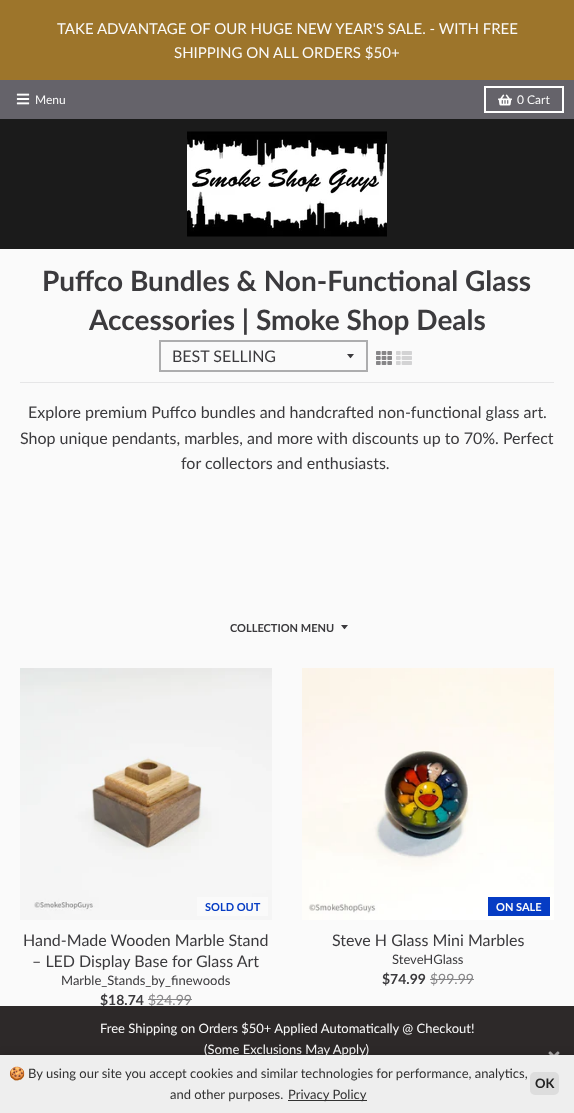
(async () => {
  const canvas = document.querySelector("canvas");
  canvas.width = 574;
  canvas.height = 1113;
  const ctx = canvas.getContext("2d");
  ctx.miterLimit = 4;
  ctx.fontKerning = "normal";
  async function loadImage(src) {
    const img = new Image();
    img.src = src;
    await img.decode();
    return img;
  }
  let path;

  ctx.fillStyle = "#fafafa";
  ctx.fillRect(0, 0, 574, 1113);
  ctx.fillStyle = "#9d752b";
  ctx.fillRect(0, 0, 574, 80);
  ctx.fillStyle = "#65636a";
  ctx.fillRect(0, 80, 574, 39);
  ctx.drawImage(await loadImage("img/2.png"), 16, 93, 14, 12);
  ctx.strokeStyle = "#ffffff";
  ctx.lineWidth = 2;
  ctx.strokeRect(485, 87, 78, 25);
  ctx.drawImage(await loadImage("img/3.png"), 498, 94, 14, 12);
  ctx.fillStyle = "#1b1b1b";
  ctx.fillRect(0, 119, 574, 130);
  ctx.drawImage(await loadImage("img/4.png"), 187, 131, 200, 106);
  ctx.fillStyle = "#e6e6e7";
  ctx.fillRect(20, 382, 534, 1);
  ctx.fillStyle = "#3b3a3d";
  path = new Path2D("M347 354C351.5 359.5 349.5 359.5 354 354Z");
  ctx.fill(path);
  ctx.strokeStyle = "#adadae";
  ctx.strokeRect(160, 341, 207, 30);
  ctx.drawImage(await loadImage("img/5.png"), 376, 351, 16, 14);
  ctx.drawImage(await loadImage("img/6.png"), 396, 351, 16, 14);
  path = new Path2D("M341 625C345.5 630.5 343.5 630.5 348 625Z");
  ctx.fill(path);
  ctx.drawImage(await loadImage("img/7.png"), 20, 668, 252, 252);
  ctx.fillStyle = "#fafafa";
  ctx.fillRect(197, 897, 71, 19);
  ctx.fillStyle = "#878688";
  ctx.fillRect(148, 999, 44, 1);
  ctx.drawImage(await loadImage("img/8.png"), 302, 668, 252, 252);
  ctx.fillStyle = "#063cc4";
  ctx.fillRect(488, 897, 62, 19);
  ctx.fillStyle = "#878688";
  ctx.fillRect(430, 979, 44, 1);
  ctx.font = "15px Lato";
  ctx.fillStyle = "#fafafa";
  ctx.fillText("TAKE ADVANTAGE OF OUR HUGE NEW YEAR'S SALE. - WITH FREE", 57, 34);
  ctx.fillText("SHIPPING ON ALL ORDERS $50+", 174, 58);
  ctx.font = "12px Lato";
  ctx.fillText("Menu", 35, 104);
  ctx.fillText("0 Cart", 517, 104);
  ctx.font = "bold 28px Lato";
  ctx.fillStyle = "#3b3a3d";
  ctx.fillText("Puffco Bundles & Non-Functional Glass", 42, 291);
  ctx.fillText("Accessories | Smoke Shop Deals", 89, 330);
  ctx.font = "16px Lato";
  for (const [text, x, y] of [
    ["BEST SELLING", 172, 362],
    ["Explore premium Puffco bundles and handcrafted non-functional glass art.", 28, 418],
    ["Shop unique pendants, marbles, and more with discounts up to 70%. Perfect", 20, 444],
    ["for collectors and enthusiasts.", 181, 469],
  ]) {
    ctx.fillText(text, x, y);
  }
  ctx.font = "bold 11px Lato";
  ctx.fillText("COLLECTION MENU", 230, 632);
  ctx.fillStyle = "#063cc4";
  ctx.fillText("SOLD OUT", 205, 911);
  ctx.font = "16px Lato";
  ctx.fillStyle = "#3b3a3d";
  ctx.fillText("Hand-Made Wooden Marble Stand", 23, 946);
  ctx.fillText("– LED Display Base for Glass Art", 32, 967);
  ctx.font = "13px Lato";
  ctx.fillText("Marble_Stands_by_finewoods", 61, 985);
  ctx.font = "bold 14px Lato";
  ctx.fillText("$18.74", 100, 1005);
  ctx.font = "14px Lato";
  ctx.fillStyle = "#878688";
  ctx.fillText("$24.99", 148, 1005);
  ctx.fillStyle = "#2d2929";
  ctx.fillRect(0, 1006, 574, 49);
  ctx.drawImage(await loadImage("img/1.png"), 548, 1051, 12, 4);
  ctx.font = "13px Lato";
  ctx.fillStyle = "#fafafa";
  ctx.fillText("(Some Exclusions May Apply)", 204, 1054);
  ctx.fillText("Free Shipping on Orders $50+ Applied Automatically @ Checkout!", 100, 1033);
  ctx.font = "bold 11px Lato";
  ctx.fillText("ON SALE", 496, 911);
  ctx.font = "16px Lato";
  ctx.fillStyle = "#3b3a3d";
  ctx.fillText("Steve H Glass Mini Marbles", 332, 946);
  ctx.font = "13px Lato";
  ctx.fillText("SteveHGlass", 392, 964);
  ctx.font = "bold 14px Lato";
  ctx.fillText("$74.99", 382, 984);
  ctx.font = "14px Lato";
  ctx.fillStyle = "#878688";
  ctx.fillText("$99.99", 430, 984);
  ctx.fillStyle = "rgba(0, 0, 0, 0.2)";
  ctx.filter = "blur(4.5px)";
  ctx.beginPath();
  ctx.rect(0, 1055, 574, 58);
  ctx.fill();
  ctx.filter = "none";
  ctx.fillStyle = "#eeeeee";
  ctx.fillRect(0, 1055, 574, 58);
  ctx.font = "13px Noto Color Emoji";
  ctx.fillStyle = "#323232";
  ctx.fillText("🍪", 9, 1078);
  ctx.font = "13px Lato";
  ctx.fillText("By using our site you accept cookies and similar technologies for performance, analytics,", 28, 1078);
  ctx.fillStyle = "#dddddd";
  ctx.beginPath();
  ctx.roundRect(530, 1072, 29, 23, 5);
  ctx.fill();
  ctx.font = "bold 13px Lato";
  ctx.fillStyle = "#222222";
  ctx.fillText("OK", 535, 1088);
  ctx.font = "13px Lato";
  ctx.fillStyle = "#323232";
  ctx.fillText("and other purposes.", 170, 1099);
  ctx.fillRect(288, 1100, 79, 1);
  ctx.fillText("Privacy Policy", 288, 1099);
})();
